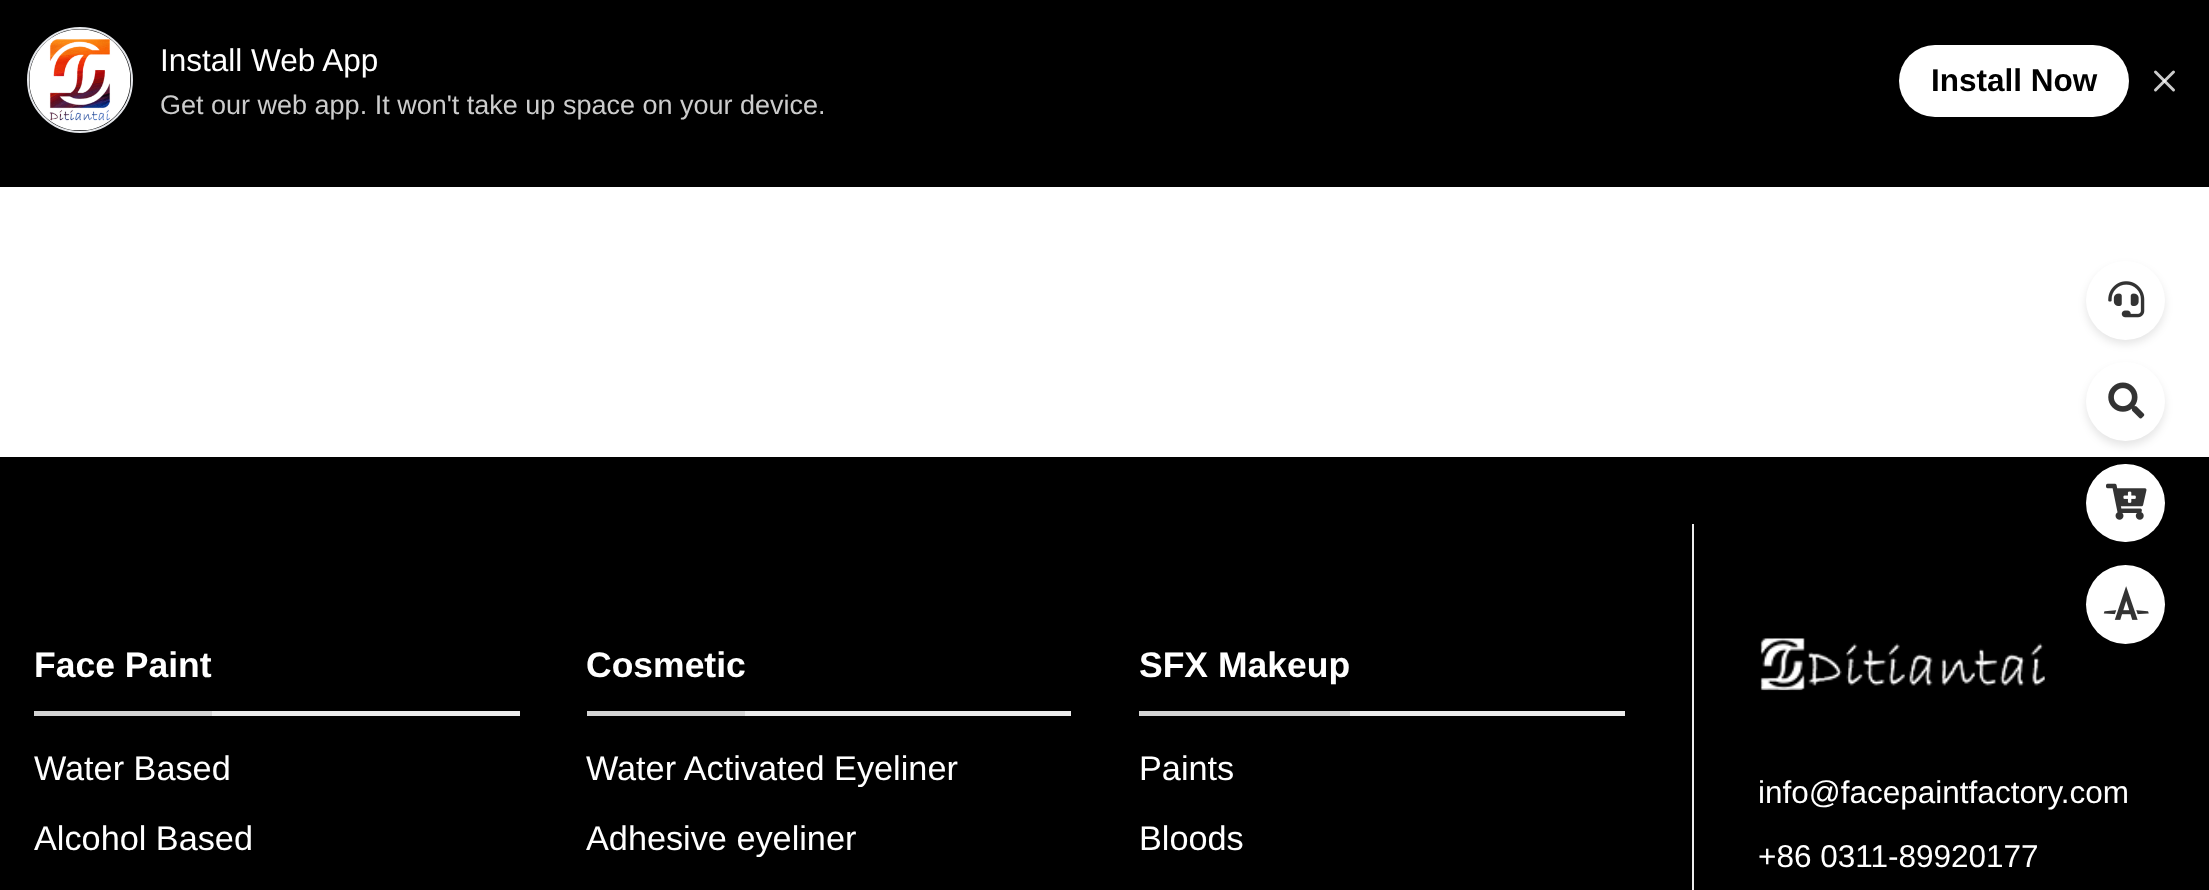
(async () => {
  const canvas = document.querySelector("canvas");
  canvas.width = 2209;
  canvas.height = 890;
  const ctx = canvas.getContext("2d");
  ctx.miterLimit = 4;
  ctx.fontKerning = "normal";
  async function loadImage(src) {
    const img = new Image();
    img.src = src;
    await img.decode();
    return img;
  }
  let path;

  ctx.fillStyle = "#ffffff";
  ctx.fillRect(0, 0, 2209, 890);
  ctx.fillStyle = "#000000";
  ctx.fillRect(0, 0, 2209, 187);
  ctx.beginPath();
  ctx.arc(80, 80, 52, 0, Math.PI * 2);
  ctx.strokeStyle = "#e5e7eb";
  ctx.lineWidth = 2;
  ctx.stroke();
  ctx.drawImage(await loadImage("img/1.png"), 29, 29, 102, 102);
  ctx.fillStyle = "#ffffff";
  ctx.beginPath();
  ctx.roundRect(1899, 45, 230, 72, 36);
  ctx.fill();
  path = new Path2D("M2173.5 72L2155.5 90");
  ctx.strokeStyle = "#cccccc";
  ctx.lineWidth = 3;
  ctx.lineCap = "round";
  ctx.lineJoin = "round";
  ctx.stroke(path);
  path = new Path2D("M2155.5 72L2173.5 90");
  ctx.strokeStyle = "rgba(255, 255, 255, 0.8)";
  ctx.stroke(path);
  ctx.fillStyle = "rgba(0, 0, 0, 0.1)";
  ctx.filter = "blur(4.5px)";
  ctx.beginPath();
  ctx.roundRect(2086, 266, 79, 78, 39);
  ctx.fill();
  ctx.filter = "none";
  ctx.fillStyle = "#ffffff";
  ctx.beginPath();
  ctx.arc(2125.5, 300.5, 39.5, 0, Math.PI * 2);
  ctx.fill();
  ctx.drawImage(await loadImage("img/2.png"), 2108, 281, 37, 37);
  ctx.fillStyle = "#000000";
  ctx.fillRect(0, 457, 2209, 433);
  ctx.fillStyle = "rgba(0, 0, 0, 0.1)";
  ctx.filter = "blur(4.5px)";
  ctx.beginPath();
  ctx.roundRect(2086, 367, 79, 79, 39.5);
  ctx.fill();
  ctx.filter = "none";
  ctx.fillStyle = "#ffffff";
  ctx.beginPath();
  ctx.arc(2125.5, 401.5, 39.5, 0, Math.PI * 2);
  ctx.fill();
  ctx.drawImage(await loadImage("img/3.png"), 2108, 382, 37, 37);
  ctx.beginPath();
  ctx.roundRect(2086, 464, 79, 78, 39);
  ctx.fill();
  ctx.drawImage(await loadImage("img/4.png"), 2106, 483, 41, 37);
  ctx.beginPath();
  ctx.arc(2125.5, 604.5, 39.5, 0, Math.PI * 2);
  ctx.fill();
  ctx.drawImage(await loadImage("img/5.png"), 2103, 586, 46, 34);
  for (const [x, y, w, h, color] of [
    [212, 711, 308, 5, "#ececec"],
    [34, 711, 178, 5, "#d4d4d4"],
    [745, 711, 326, 5, "#ececec"],
    [587, 711, 158, 5, "#d4d4d4"],
    [1350, 711, 275, 5, "#ececec"],
    [1139, 711, 211, 5, "#d4d4d4"],
    [1692, 524, 2, 366, "#ececec"],
  ]) {
    ctx.fillStyle = color;
    ctx.fillRect(x, y, w, h);
  }
  ctx.drawImage(await loadImage("img/6.png"), 1760, 638, 285, 53);
  ctx.font = "31.5px Liberation Sans";
  ctx.fillStyle = "#ffffff";
  ctx.fillText("Install Web App", 160, 71);
  ctx.font = "27px Liberation Sans";
  ctx.fillStyle = "#cccccc";
  ctx.fillText("Get our web app. It won't take up space on your device.", 160, 114);
  ctx.font = "bold 31.5px Liberation Sans";
  ctx.fillStyle = "#000000";
  ctx.fillText("Install Now", 1931, 91);
  ctx.font = "bold 35.5px Liberation Sans";
  ctx.fillStyle = "#ffffff";
  ctx.fillText("Face Paint", 34, 677);
  ctx.font = "34.25px Liberation Sans";
  ctx.fillText("Water Based", 34, 780);
  ctx.fillText("Alcohol Based", 34, 850);
  ctx.font = "bold 35.5px Liberation Sans";
  ctx.fillText("Cosmetic", 586, 677);
  ctx.font = "34.25px Liberation Sans";
  ctx.fillText("Water Activated Eyeliner", 586, 780);
  ctx.fillText("Adhesive eyeliner", 586, 850);
  ctx.font = "bold 35.5px Liberation Sans";
  ctx.fillText("SFX Makeup", 1139, 677);
  ctx.font = "34.25px Liberation Sans";
  ctx.fillText("Paints", 1139, 780);
  ctx.fillText("Bloods", 1139, 850);
  ctx.font = "31.5px Liberation Sans";
  ctx.fillText("info@facepaintfactory.com", 1758, 803);
  ctx.fillText("+86 0311-89920177", 1758, 867);
})();
